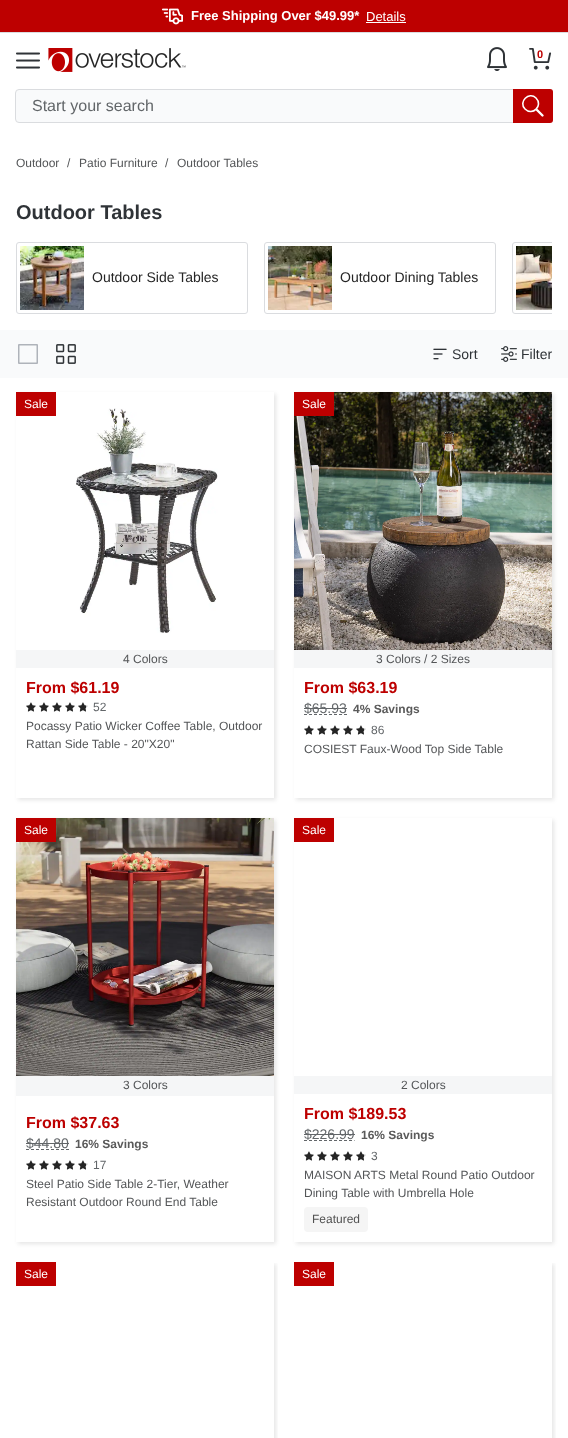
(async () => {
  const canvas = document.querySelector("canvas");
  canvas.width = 568;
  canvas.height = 1438;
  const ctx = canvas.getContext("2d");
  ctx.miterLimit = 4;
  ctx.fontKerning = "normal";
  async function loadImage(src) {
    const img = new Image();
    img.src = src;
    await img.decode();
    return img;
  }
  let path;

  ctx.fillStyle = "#ffffff";
  ctx.fillRect(0, 0, 568, 1438);
  ctx.fillStyle = "#bd0000";
  ctx.fillRect(0, 0, 568, 32);
  ctx.drawImage(await loadImage("img/1.png"), 162, 8, 21, 17);
  ctx.fillStyle = "#ffffff";
  ctx.fillRect(366, 22, 40, 1);
  ctx.fillStyle = "#dadcdf";
  ctx.fillRect(0, 32, 568, 1);
  ctx.drawImage(await loadImage("img/2.png"), 16, 52, 24, 17);
  ctx.drawImage(await loadImage("img/3.png"), 48, 48, 138, 24);
  ctx.drawImage(await loadImage("img/4.png"), 487, 47, 20, 24);
  ctx.drawImage(await loadImage("img/5.png"), 529, 48, 23, 22);
  ctx.fillStyle = "#f9fafb";
  ctx.beginPath();
  ctx.roundRect(15.5, 89.5, 537, 33, 3.5);
  ctx.fill();
  ctx.strokeStyle = "#dadcdf";
  ctx.stroke();
  ctx.fillStyle = "#bd0000";
  ctx.beginPath();
  ctx.roundRect(513, 89, 40, 34, [0, 3, 3, 0]);
  ctx.fill();
  path = new Path2D("M542.5 115.5L537 110");
  ctx.strokeStyle = "#ffffff";
  ctx.lineWidth = 2.4;
  ctx.lineCap = "round";
  ctx.stroke(path);
  path = new Path2D("M536 98C543.5 105.5 532.5 116.5 525 109C518 102 529 91 536 98Z");
  ctx.lineWidth = 1.6;
  ctx.lineCap = "butt";
  ctx.stroke(path);
  ctx.beginPath();
  ctx.roundRect(16.5, 242.5, 231, 71, 2.5);
  ctx.strokeStyle = "#dadcdf";
  ctx.lineWidth = 1;
  ctx.stroke();
  ctx.drawImage(await loadImage("img/6.png"), 20, 246, 64, 64);
  ctx.beginPath();
  ctx.roundRect(264.5, 242.5, 231, 71, 2.5);
  ctx.stroke();
  ctx.drawImage(await loadImage("img/7.png"), 268, 246, 64, 64);
  ctx.save();
  ctx.beginPath();
  ctx.rect(16, 242, 536, 72);
  ctx.clip();
  ctx.beginPath();
  ctx.roundRect(512.5, 242.5, 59, 71, 2.5);
  ctx.stroke();
  ctx.restore();
  ctx.drawImage(await loadImage("img/8.png"), 516, 246, 36, 64);
  ctx.fillStyle = "#f9fafb";
  ctx.fillRect(0, 330, 568, 48);
  ctx.drawImage(await loadImage("img/9.png"), 18, 344, 20, 20);
  ctx.drawImage(await loadImage("img/10.png"), 56, 344, 20, 20);
  ctx.drawImage(await loadImage("img/11.png"), 433, 348, 14, 12);
  ctx.drawImage(await loadImage("img/12.png"), 501, 346, 16, 16);
  ctx.save();
  path = new Path2D("M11 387H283V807H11ZM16 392H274V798H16Z");
  ctx.clip(path, "evenodd");
  ctx.fillStyle = "rgba(0, 0, 0, 0.1)";
  ctx.filter = "blur(2px)";
  ctx.beginPath();
  ctx.rect(18, 394, 258, 406);
  ctx.fill();
  ctx.filter = "none";
  ctx.restore();
  ctx.fillStyle = "#bd0000";
  ctx.fillRect(16, 392, 40, 24);
  ctx.drawImage(await loadImage("img/13.png"), 26, 702, 10, 10);
  ctx.drawImage(await loadImage("img/13.png"), 39, 702, 10, 10);
  ctx.drawImage(await loadImage("img/13.png"), 52, 702, 10, 10);
  ctx.drawImage(await loadImage("img/13.png"), 65, 702, 10, 10);
  ctx.drawImage(await loadImage("img/14.png"), 78, 702, 10, 10);
  ctx.fillStyle = "#f5f6f7";
  ctx.fillRect(16, 650, 258, 18);
  ctx.drawImage(await loadImage("img/15.png"), 76, 408, 142, 225);
  ctx.save();
  path = new Path2D("M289 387H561V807H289ZM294 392H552V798H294Z");
  ctx.clip(path, "evenodd");
  ctx.fillStyle = "rgba(0, 0, 0, 0.1)";
  ctx.filter = "blur(2px)";
  ctx.beginPath();
  ctx.rect(296, 394, 258, 406);
  ctx.fill();
  ctx.filter = "none";
  ctx.restore();
  ctx.drawImage(await loadImage("img/16.png"), 294, 392, 258, 258);
  ctx.fillStyle = "#bd0000";
  ctx.fillRect(294, 392, 40, 24);
  path = new Path2D("M304 714.5H347");
  ctx.strokeStyle = "#626669";
  ctx.setLineDash([3, 2]);
  ctx.stroke(path);
  ctx.fillStyle = "#626669";
  ctx.fillRect(304, 708, 43, 1);
  ctx.drawImage(await loadImage("img/13.png"), 304, 725, 10, 10);
  ctx.drawImage(await loadImage("img/13.png"), 317, 725, 10, 10);
  ctx.drawImage(await loadImage("img/13.png"), 330, 725, 10, 10);
  ctx.drawImage(await loadImage("img/13.png"), 343, 725, 10, 10);
  ctx.drawImage(await loadImage("img/14.png"), 356, 725, 10, 10);
  ctx.fillStyle = "#f5f6f7";
  ctx.fillRect(294, 650, 258, 18);
  ctx.save();
  path = new Path2D("M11 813H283V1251H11ZM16 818H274V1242H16Z");
  ctx.clip(path, "evenodd");
  ctx.fillStyle = "rgba(0, 0, 0, 0.1)";
  ctx.filter = "blur(2px)";
  ctx.beginPath();
  ctx.rect(18, 820, 258, 424);
  ctx.fill();
  ctx.filter = "none";
  ctx.restore();
  ctx.drawImage(await loadImage("img/17.png"), 16, 818, 258, 258);
  ctx.fillStyle = "#bd0000";
  ctx.fillRect(16, 818, 40, 24);
  path = new Path2D("M26 1149.5H69");
  ctx.stroke(path);
  ctx.fillStyle = "#626669";
  ctx.fillRect(26, 1143, 43, 1);
  ctx.drawImage(await loadImage("img/13.png"), 26, 1160, 10, 10);
  ctx.drawImage(await loadImage("img/13.png"), 39, 1160, 10, 10);
  ctx.drawImage(await loadImage("img/13.png"), 52, 1160, 10, 10);
  ctx.drawImage(await loadImage("img/13.png"), 65, 1160, 10, 10);
  ctx.drawImage(await loadImage("img/14.png"), 78, 1160, 10, 10);
  ctx.fillStyle = "#f5f6f7";
  ctx.fillRect(16, 1076, 258, 20);
  ctx.save();
  path = new Path2D("M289 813H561V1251H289ZM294 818H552V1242H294Z");
  ctx.clip(path, "evenodd");
  ctx.fillStyle = "rgba(0, 0, 0, 0.1)";
  ctx.filter = "blur(2px)";
  ctx.beginPath();
  ctx.rect(296, 820, 258, 424);
  ctx.fill();
  ctx.filter = "none";
  ctx.restore();
  ctx.fillStyle = "#bd0000";
  ctx.fillRect(294, 818, 40, 24);
  path = new Path2D("M304 1140.5H354.5");
  ctx.stroke(path);
  ctx.fillStyle = "#626669";
  ctx.fillRect(304, 1134, 51, 1);
  ctx.drawImage(await loadImage("img/13.png"), 304, 1151, 10, 10);
  ctx.drawImage(await loadImage("img/13.png"), 317, 1151, 10, 10);
  ctx.drawImage(await loadImage("img/13.png"), 330, 1151, 10, 10);
  ctx.drawImage(await loadImage("img/13.png"), 343, 1151, 10, 10);
  ctx.drawImage(await loadImage("img/14.png"), 356, 1151, 10, 10);
  ctx.fillStyle = "#f5f5f5";
  ctx.beginPath();
  ctx.roundRect(304, 1207, 64, 25, 4);
  ctx.fill();
  ctx.fillStyle = "#f5f6f7";
  ctx.fillRect(294, 1076, 258, 18);
  ctx.save();
  ctx.beginPath();
  ctx.rect(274, 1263, 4, 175);
  ctx.clip();
  ctx.fillStyle = "rgba(0, 0, 0, 0.1)";
  ctx.filter = "blur(2px)";
  ctx.beginPath();
  ctx.rect(18, 1264, 258, 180);
  ctx.fill();
  ctx.filter = "none";
  ctx.restore();
  ctx.fillStyle = "#bd0000";
  ctx.fillRect(16, 1262, 40, 24);
  ctx.save();
  ctx.beginPath();
  ctx.rect(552, 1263, 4, 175);
  ctx.clip();
  ctx.fillStyle = "rgba(0, 0, 0, 0.1)";
  ctx.filter = "blur(2px)";
  ctx.beginPath();
  ctx.rect(296, 1264, 258, 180);
  ctx.fill();
  ctx.filter = "none";
  ctx.restore();
  ctx.fillRect(294, 1262, 40, 24);
  ctx.font = "bold 13px Liberation Sans";
  ctx.fillStyle = "#ffffff";
  ctx.fillText("Free Shipping Over $49.99*", 191, 20);
  ctx.font = "13px Liberation Sans";
  ctx.fillText("Details", 366, 21);
  ctx.font = "bold 11px Liberation Sans";
  ctx.fillStyle = "#bd0000";
  ctx.fillText("0", 537, 58);
  ctx.font = "16px Liberation Sans";
  ctx.fillStyle = "#626669";
  ctx.fillText("Start your search", 32, 111);
  ctx.font = "12px Liberation Sans";
  ctx.fillStyle = "#545658";
  for (const [text, x, y] of [
    ["Outdoor", 16, 167],
    ["/", 67, 167],
    ["Patio Furniture", 79, 167],
    ["/", 165, 167],
    ["Outdoor Tables", 177, 167],
  ]) {
    ctx.fillText(text, x, y);
  }
  ctx.font = "bold 20px Liberation Sans";
  ctx.fillStyle = "#2f3337";
  ctx.fillText("Outdoor Tables", 16, 219);
  ctx.font = "14px Liberation Sans";
  ctx.fillStyle = "#252525";
  ctx.fillText("Outdoor Side Tables", 92, 282);
  ctx.fillText("Outdoor Dining Tables", 340, 282);
  ctx.fillStyle = "#2f3337";
  ctx.fillText("Sort", 452, 359);
  ctx.fillText("Filter", 521, 359);
  ctx.font = "12px Liberation Sans";
  ctx.fillStyle = "#ffffff";
  ctx.fillText("Sale", 24, 408);
  ctx.font = "bold 16px Liberation Sans";
  ctx.fillStyle = "#bd0000";
  ctx.fillText("From $61.19", 26, 693);
  ctx.font = "12px Liberation Sans";
  ctx.fillStyle = "#626669";
  ctx.fillText("52", 93, 711);
  ctx.fillStyle = "#545658";
  for (const [text, x, y] of [
    ["Pocassy Patio Wicker Coffee Table, Outdoor", 26, 730],
    ["Rattan Side Table - 20\"X20\"", 26, 748],
    ["4 Colors", 123, 663],
  ]) {
    ctx.fillText(text, x, y);
  }
  ctx.fillStyle = "#ffffff";
  ctx.fillText("Sale", 302, 408);
  ctx.font = "bold 16px Liberation Sans";
  ctx.fillStyle = "#bd0000";
  ctx.fillText("From $63.19", 304, 693);
  ctx.font = "14px Liberation Sans";
  ctx.fillStyle = "#626669";
  ctx.fillText("$65.93", 304, 713);
  ctx.font = "bold 12px Liberation Sans";
  ctx.fillStyle = "#5a5a5a";
  ctx.fillText("4% Savings", 353, 713);
  ctx.font = "12px Liberation Sans";
  ctx.fillStyle = "#626669";
  ctx.fillText("86", 371, 734);
  ctx.fillStyle = "#545658";
  ctx.fillText("COSIEST Faux-Wood Top Side Table", 304, 753);
  ctx.fillText("3 Colors / 2 Sizes", 376, 663);
  ctx.fillStyle = "#ffffff";
  ctx.fillText("Sale", 24, 834);
  ctx.font = "bold 16px Liberation Sans";
  ctx.fillStyle = "#bd0000";
  ctx.fillText("From $37.63", 26, 1128);
  ctx.font = "14px Liberation Sans";
  ctx.fillStyle = "#626669";
  ctx.fillText("$44.80", 26, 1148);
  ctx.font = "bold 12px Liberation Sans";
  ctx.fillStyle = "#5a5a5a";
  ctx.fillText("16% Savings", 75, 1148);
  ctx.font = "12px Liberation Sans";
  ctx.fillStyle = "#626669";
  ctx.fillText("17", 93, 1169);
  ctx.fillStyle = "#545658";
  for (const [text, x, y] of [
    ["Steel Patio Side Table 2-Tier, Weather", 26, 1188],
    ["Resistant Outdoor Round End Table", 26, 1206],
    ["3 Colors", 123, 1089],
  ]) {
    ctx.fillText(text, x, y);
  }
  ctx.fillStyle = "#ffffff";
  ctx.fillText("Sale", 302, 834);
  ctx.font = "bold 16px Liberation Sans";
  ctx.fillStyle = "#bd0000";
  ctx.fillText("From $189.53", 304, 1119);
  ctx.font = "14px Liberation Sans";
  ctx.fillStyle = "#626669";
  ctx.fillText("$226.99", 304, 1139);
  ctx.font = "bold 12px Liberation Sans";
  ctx.fillStyle = "#5a5a5a";
  ctx.fillText("16% Savings", 361, 1139);
  ctx.font = "12px Liberation Sans";
  ctx.fillStyle = "#626669";
  ctx.fillText("3", 371, 1160);
  ctx.fillStyle = "#545658";
  ctx.fillText("MAISON ARTS Metal Round Patio Outdoor", 304, 1179);
  ctx.fillText("Dining Table with Umbrella Hole", 304, 1197);
  ctx.fillStyle = "#515151";
  ctx.fillText("Featured", 312, 1223);
  ctx.fillStyle = "#545658";
  ctx.fillText("2 Colors", 401, 1089);
  ctx.fillStyle = "#ffffff";
  ctx.fillText("Sale", 24, 1278);
  ctx.fillText("Sale", 302, 1278);
})();
